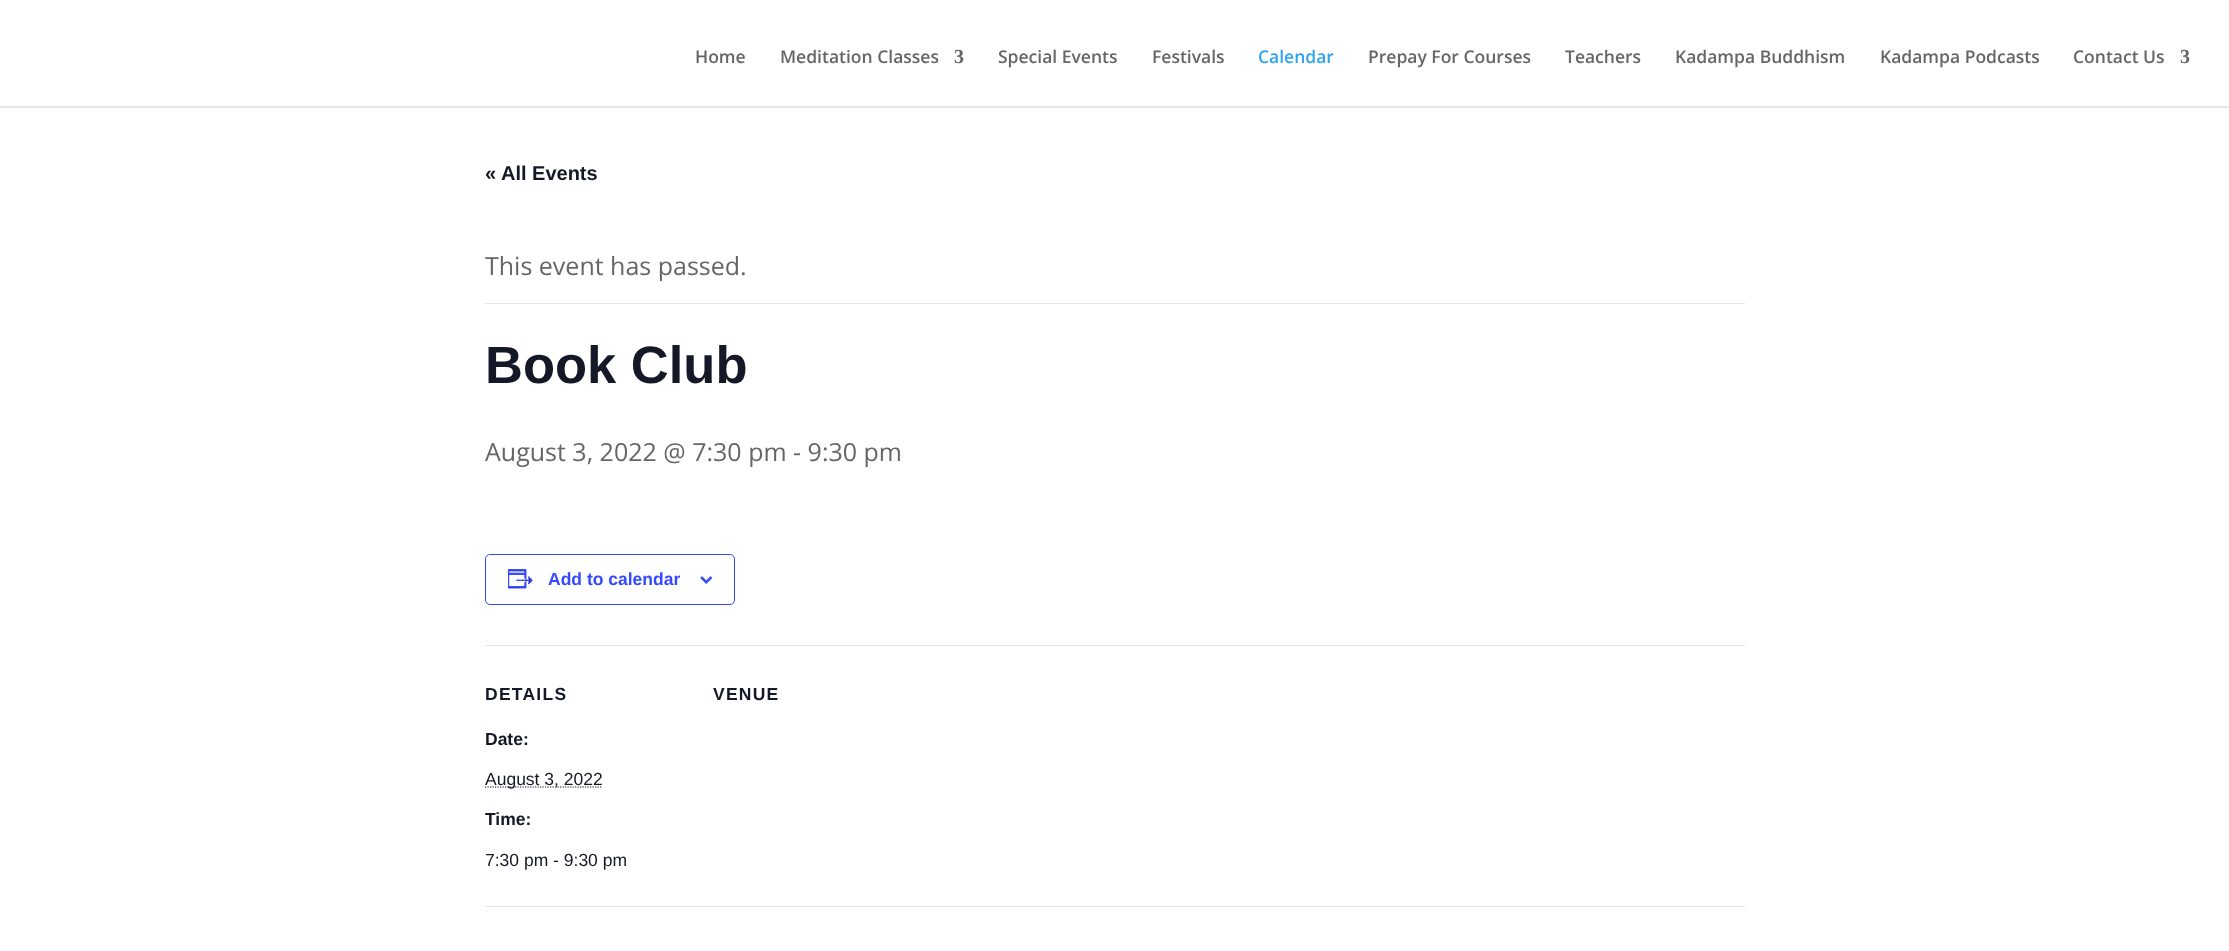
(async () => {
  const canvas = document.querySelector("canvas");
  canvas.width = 2229;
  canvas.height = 951;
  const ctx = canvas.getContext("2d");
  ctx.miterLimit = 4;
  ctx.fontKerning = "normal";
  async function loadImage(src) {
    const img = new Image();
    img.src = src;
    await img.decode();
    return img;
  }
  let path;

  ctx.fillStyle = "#ffffff";
  ctx.fillRect(0, 0, 2229, 951);
  ctx.fillStyle = "#e6e6e6";
  ctx.fillRect(0, 106, 2229, 2);
  ctx.fillStyle = "#e4e4e4";
  ctx.fillRect(485, 303, 1260, 1);
  ctx.beginPath();
  ctx.roundRect(485.5, 554.5, 249, 50, 4.5);
  ctx.strokeStyle = "#334aff";
  ctx.stroke();
  ctx.drawImage(await loadImage("img/1.png"), 508, 569, 25, 20);
  ctx.drawImage(await loadImage("img/2.png"), 700, 576, 13, 8);
  ctx.fillRect(485, 645, 1260, 1);
  path = new Path2D("M485 787H602.5");
  ctx.strokeStyle = "#141827";
  ctx.lineWidth = 1.2;
  ctx.setLineDash([1.25, 1.25]);
  ctx.stroke(path);
  ctx.fillRect(485, 906, 1260, 1);
  ctx.font = "600 17.5px Open Sans";
  ctx.fillStyle = "#666666";
  ctx.fillText("Home", 695, 63);
  ctx.fillText("Meditation Classes", 780, 63);
  ctx.font = "bold 20px Liberation Serif";
  ctx.fillText("3", 954, 63);
  ctx.font = "600 17.5px Open Sans";
  ctx.fillText("Special Events", 998, 63);
  ctx.fillText("Festivals", 1152, 63);
  ctx.fillStyle = "#2ea3f2";
  ctx.fillText("Calendar", 1258, 63);
  ctx.fillStyle = "#666666";
  for (const [text, x, y] of [
    ["Prepay For Courses", 1368, 63],
    ["Teachers", 1565, 63],
    ["Kadampa Buddhism", 1675, 63],
    ["Kadampa Podcasts", 1880, 63],
    ["Contact Us", 2073, 63],
  ]) {
    ctx.fillText(text, x, y);
  }
  ctx.font = "bold 20px Liberation Serif";
  ctx.fillText("3", 2180, 63);
  ctx.font = "bold 20px Liberation Sans";
  ctx.fillStyle = "#141827";
  ctx.fillText("« All Events", 485, 180);
  ctx.font = "25px Open Sans";
  ctx.fillStyle = "#666666";
  ctx.fillText("This event has passed.", 485, 275);
  ctx.font = "bold 52.5px Liberation Sans";
  ctx.fillStyle = "#141827";
  ctx.fillText("Book Club", 485, 383);
  ctx.font = "25px Open Sans";
  ctx.fillStyle = "#666666";
  ctx.fillText("August 3, 2022 @ 7:30 pm - 9:30 pm", 485, 461);
  ctx.font = "bold 17.5px Liberation Sans";
  ctx.fillStyle = "#334aff";
  ctx.fillText("Add to calendar", 548, 585);
  ctx.letterSpacing = "1.25px";
  ctx.fillStyle = "#141827";
  ctx.fillText("DETAILS", 485, 700);
  ctx.letterSpacing = "0px";
  ctx.fillText("Date:", 485, 745);
  ctx.font = "17.5px Liberation Sans";
  ctx.fillText("August 3, 2022", 485, 785);
  ctx.font = "bold 17.5px Liberation Sans";
  ctx.fillText("Time:", 485, 825);
  ctx.font = "17.5px Liberation Sans";
  ctx.fillText("7:30 pm - 9:30 pm", 485, 866);
  ctx.letterSpacing = "1.25px";
  ctx.font = "bold 17.5px Liberation Sans";
  ctx.fillText("VENUE", 713, 700);
})();
